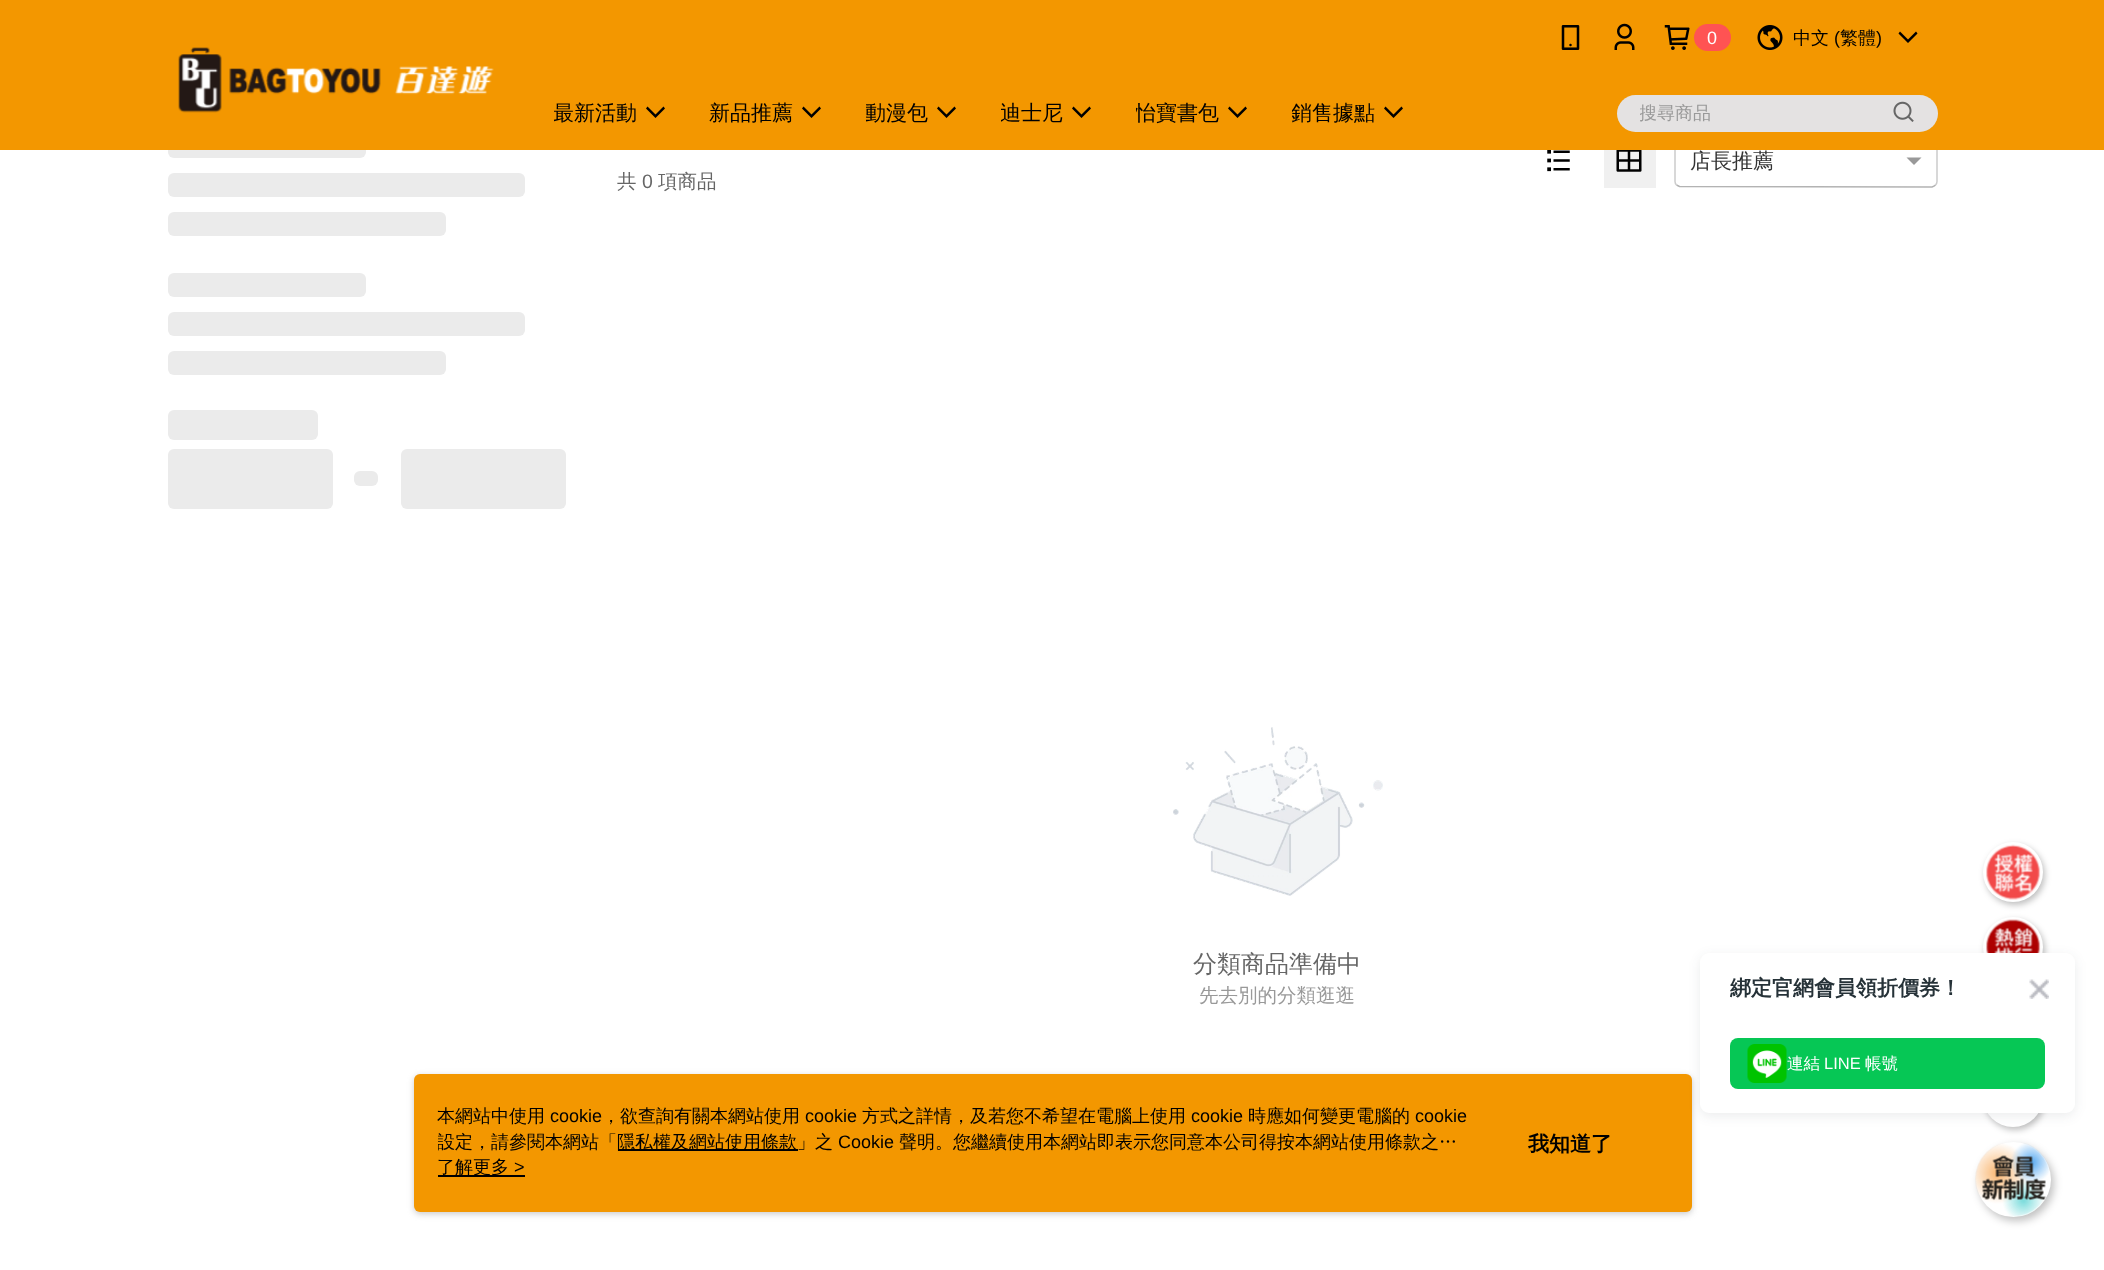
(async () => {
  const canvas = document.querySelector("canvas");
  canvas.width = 2104;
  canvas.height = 1270;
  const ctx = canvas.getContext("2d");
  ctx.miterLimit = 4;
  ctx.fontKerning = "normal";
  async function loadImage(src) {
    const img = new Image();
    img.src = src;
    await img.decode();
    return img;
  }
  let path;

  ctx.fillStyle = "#ffffff";
  ctx.fillRect(0, 0, 2104, 1270);
  ctx.fillStyle = "#ebebeb";
  ctx.beginPath();
  ctx.roundRect(168, 134, 198, 24, 6);
  ctx.fill();
  path = new Path2D("M1935.5 136C1936.5 137 1937 138 1937 139.5V181.5C1937 183 1936.5 184 1935.5 185");
  ctx.strokeStyle = "#cccccc";
  ctx.lineWidth = 1.5;
  ctx.stroke(path);
  path = new Path2D("M1935.5 185C1934.5 186 1933.5 186.5 1932 187L1679.5 186.5L1676.5 185");
  ctx.strokeStyle = "#b3b3b3";
  ctx.stroke(path);
  path = new Path2D("M1676.5 185C1675.5 184 1675 183 1675 181.5V139.5C1675 138 1675.5 137 1676.5 136");
  ctx.strokeStyle = "#cccccc";
  ctx.stroke(path);
  ctx.fillStyle = "#f39700";
  ctx.fillRect(0, 0, 2104, 150);
  ctx.drawImage(await loadImage("img/1.png"), 178, 47, 316, 66);
  ctx.drawImage(await loadImage("img/2.png"), 1561, 25, 19, 25);
  ctx.drawImage(await loadImage("img/3.png"), 1614, 23, 21, 27);
  ctx.drawImage(await loadImage("img/4.png"), 1664, 25, 26, 25);
  ctx.fillStyle = "#ff5353";
  ctx.beginPath();
  ctx.roundRect(1694, 24, 37, 27, 13.5);
  ctx.fill();
  ctx.drawImage(await loadImage("img/5.png"), 1757, 25, 26, 25);
  ctx.fillStyle = "#000000";
  path = new Path2D("M1900 31.5L1898.5 33.5L1908 43L1917.5 33.5L1916 31.5L1908 39.5Z");
  ctx.fill(path);
  path = new Path2D("M647.5 106.5L646 108.5L655.5 118L665 108.5L663.5 106.5L655.5 114.5Z");
  ctx.fill(path);
  path = new Path2D("M803.5 106.5L802 108.5L811.5 118L821 108.5L819.5 106.5L811.5 114.5Z");
  ctx.fill(path);
  path = new Path2D("M938.5 106.5L937 108.5L946.5 118L956 108.5L954.5 106.5L946.5 114.5Z");
  ctx.fill(path);
  path = new Path2D("M1073.5 106.5L1072 108.5L1081.5 118L1091 108.5L1089.5 106.5L1081.5 114.5Z");
  ctx.fill(path);
  path = new Path2D("M1229.5 106.5L1228 108.5L1237.5 118L1247 108.5L1245.5 106.5L1237.5 114.5Z");
  ctx.fill(path);
  path = new Path2D("M1385.5 106.5L1384 108.5L1393.5 118L1403 108.5L1401.5 106.5L1393.5 114.5Z");
  ctx.fill(path);
  ctx.fillStyle = "#e4e2e2";
  ctx.beginPath();
  ctx.roundRect(1617, 95, 321, 37, 18.5);
  ctx.fill();
  ctx.drawImage(await loadImage("img/6.png"), 1893, 101, 21, 21);
  ctx.fillStyle = "rgba(0, 0, 0, 0.25)";
  ctx.filter = "blur(3px)";
  ctx.beginPath();
  ctx.roundRect(1985, 845, 60, 60, 30);
  ctx.fill();
  ctx.filter = "none";
  ctx.fillStyle = "#ffffff";
  ctx.beginPath();
  ctx.arc(2013, 872, 30, 0, Math.PI * 2);
  ctx.fill();
  ctx.drawImage(await loadImage("img/7.png"), 1986, 844, 55, 56);
  ctx.fillStyle = "rgba(0, 0, 0, 0.25)";
  ctx.filter = "blur(3px)";
  ctx.beginPath();
  ctx.roundRect(1985, 920, 60, 60, 30);
  ctx.fill();
  ctx.filter = "none";
  ctx.fillStyle = "#ffffff";
  ctx.beginPath();
  ctx.arc(2013, 947, 30, 0, Math.PI * 2);
  ctx.fill();
  ctx.drawImage(await loadImage("img/8.png"), 1986, 919, 55, 34);
  ctx.fillStyle = "rgba(0, 0, 0, 0.25)";
  ctx.filter = "blur(3px)";
  ctx.beginPath();
  ctx.roundRect(1985, 1070, 60, 60, 30);
  ctx.fill();
  ctx.filter = "none";
  ctx.fillStyle = "#ffffff";
  ctx.beginPath();
  ctx.arc(2013, 1097, 30, 0, Math.PI * 2);
  ctx.fill();
  ctx.fillStyle = "rgba(0, 0, 0, 0.25)";
  ctx.filter = "blur(4px)";
  ctx.beginPath();
  ctx.roundRect(1979, 1146, 75, 75, 37.5);
  ctx.fill();
  ctx.filter = "none";
  ctx.fillStyle = "#ffffff";
  ctx.beginPath();
  ctx.arc(2013.5, 1179.5, 37.5, 0, Math.PI * 2);
  ctx.fill();
  ctx.drawImage(await loadImage("img/9.png"), 1975, 1143, 75, 74);
  ctx.fillStyle = "#ebebeb";
  ctx.beginPath();
  ctx.roundRect(168, 173, 357, 24, 6);
  ctx.fill();
  ctx.beginPath();
  ctx.roundRect(168, 212, 278, 24, 6);
  ctx.fill();
  ctx.beginPath();
  ctx.roundRect(168, 273, 198, 24, 6);
  ctx.fill();
  ctx.beginPath();
  ctx.roundRect(168, 312, 357, 24, 6);
  ctx.fill();
  ctx.beginPath();
  ctx.roundRect(168, 351, 278, 24, 6);
  ctx.fill();
  ctx.beginPath();
  ctx.roundRect(168, 410, 150, 30, 6);
  ctx.fill();
  ctx.beginPath();
  ctx.roundRect(168, 449, 165, 60, 6);
  ctx.fill();
  ctx.beginPath();
  ctx.roundRect(354, 471, 24, 15, 6);
  ctx.fill();
  ctx.beginPath();
  ctx.roundRect(401, 449, 165, 60, 6);
  ctx.fill();
  ctx.drawImage(await loadImage("img/10.png"), 1547, 150, 23, 22);
  ctx.fillStyle = "#f0f0f0";
  ctx.fillRect(1604, 150, 52, 38);
  ctx.drawImage(await loadImage("img/11.png"), 1616, 150, 26, 22);
  ctx.fillStyle = "#999999";
  path = new Path2D("M1906.5 157.5H1921.5L1914 165Z");
  ctx.fill(path);
  ctx.drawImage(await loadImage("img/12.png"), 1173, 727, 210, 169);
  ctx.fillStyle = "rgba(151, 151, 151, 0.5)";
  ctx.filter = "blur(3px)";
  ctx.beginPath();
  ctx.roundRect(414, 1076, 1278, 138, 6);
  ctx.fill();
  ctx.filter = "none";
  ctx.fillStyle = "#f39700";
  ctx.beginPath();
  ctx.roundRect(414, 1074, 1278, 138, 6);
  ctx.fill();
  ctx.fillStyle = "#000000";
  ctx.fillRect(618, 1149, 180, 2);
  ctx.fillRect(438, 1175, 87, 2);
  ctx.fillStyle = "rgba(35, 47, 53, 0.09)";
  ctx.filter = "blur(6px)";
  ctx.beginPath();
  ctx.roundRect(1700, 956, 375, 160, 9);
  ctx.fill();
  ctx.filter = "none";
  ctx.fillStyle = "#ffffff";
  ctx.beginPath();
  ctx.roundRect(1700, 953, 375, 160, 9);
  ctx.fill();
  ctx.drawImage(await loadImage("img/13.png"), 2029, 979, 20, 20);
  ctx.fillStyle = "#06c755";
  ctx.beginPath();
  ctx.roundRect(1730, 1038, 315, 51, 8);
  ctx.fill();
  ctx.drawImage(await loadImage("img/14.png"), 1747, 1044, 40, 39);
  ctx.font = "18px Liberation Sans";
  ctx.fillStyle = "#ffffff";
  ctx.fillText("0", 1707, 44);
  ctx.font = "500 18px WenQuanYi Zen Hei";
  ctx.fillStyle = "#000000";
  ctx.fillText("中文", 1793, 44);
  ctx.font = "18px Liberation Sans";
  ctx.fillText("(", 1834, 44);
  ctx.font = "500 18px WenQuanYi Zen Hei";
  ctx.fillText("繁體", 1840, 44);
  ctx.font = "18px Liberation Sans";
  ctx.fillText(")", 1876, 44);
  ctx.save();
  ctx.beginPath();
  ctx.rect(554, 90, 84, 45);
  ctx.clip();
  ctx.font = "500 21px WenQuanYi Zen Hei";
  ctx.fillText("最新活動", 553, 120);
  ctx.restore();
  ctx.font = "500 21px WenQuanYi Zen Hei";
  ctx.fillText("新品推薦", 709, 120);
  ctx.save();
  ctx.beginPath();
  ctx.rect(866, 90, 63, 45);
  ctx.clip();
  ctx.fillText("動漫包", 865, 120);
  ctx.restore();
  ctx.save();
  ctx.beginPath();
  ctx.rect(1001, 90, 63, 45);
  ctx.clip();
  ctx.fillText("迪士尼", 1000, 120);
  ctx.restore();
  ctx.save();
  ctx.beginPath();
  ctx.rect(1136, 90, 84, 45);
  ctx.clip();
  ctx.fillText("怡寶書包", 1135, 120);
  ctx.restore();
  ctx.save();
  ctx.beginPath();
  ctx.rect(1292, 90, 84, 45);
  ctx.clip();
  ctx.fillText("銷售據點", 1291, 120);
  ctx.restore();
  ctx.save();
  ctx.beginPath();
  ctx.rect(1640, 101, 228, 25);
  ctx.clip();
  ctx.font = "500 18px WenQuanYi Zen Hei";
  ctx.fillStyle = "#999999";
  ctx.fillText("搜尋商品", 1639, 119);
  ctx.restore();
  ctx.fillStyle = "#333333";
  ctx.fillText("店長推薦", 1690, 168);
  ctx.font = "500 19.5px WenQuanYi Zen Hei";
  ctx.fillStyle = "#666666";
  ctx.fillText("共", 617, 188);
  ctx.font = "19.5px Liberation Sans";
  ctx.fillText("0", 642, 188);
  ctx.font = "500 19.5px WenQuanYi Zen Hei";
  ctx.fillText("項商品", 658, 188);
  ctx.font = "500 24px WenQuanYi Zen Hei";
  ctx.fillText("分類商品準備中", 1193, 972);
  ctx.font = "500 19.5px WenQuanYi Zen Hei";
  ctx.fillStyle = "#999999";
  ctx.fillText("先去別的分類逛逛", 1199, 1002);
  ctx.font = "500 18px WenQuanYi Zen Hei";
  ctx.fillStyle = "#000000";
  ctx.fillText("本網站中使用", 437, 1122);
  ctx.font = "18px Liberation Sans";
  ctx.fillText("cookie", 550, 1122);
  ctx.font = "500 18px WenQuanYi Zen Hei";
  ctx.fillText("，欲查詢有關本網站使用", 602, 1122);
  ctx.font = "18px Liberation Sans";
  ctx.fillText("cookie", 805, 1122);
  ctx.font = "500 18px WenQuanYi Zen Hei";
  ctx.fillText("方式之詳情，及若您不希望在電腦上使用", 862, 1122);
  ctx.font = "18px Liberation Sans";
  ctx.fillText("cookie", 1191, 1122);
  ctx.font = "500 18px WenQuanYi Zen Hei";
  ctx.fillText("時應如何變更電腦的", 1248, 1122);
  ctx.font = "18px Liberation Sans";
  ctx.fillText("cookie", 1415, 1122);
  ctx.save();
  ctx.beginPath();
  ctx.rect(438, 1104, 1035, 51);
  ctx.clip();
  ctx.font = "500 18px WenQuanYi Zen Hei";
  ctx.fillText("設定，請參閱本網站「", 437, 1148);
  ctx.restore();
  ctx.font = "500 18px WenQuanYi Zen Hei";
  ctx.fillText("隱私權及網站使用條款」之", 617, 1148);
  ctx.font = "18px Liberation Sans";
  ctx.fillText("Cookie", 838, 1148);
  ctx.font = "500 18px WenQuanYi Zen Hei";
  ctx.fillText("聲明。您繼續使用本網站即表示您同意本公司得按本網站使用條款之…", 899, 1148);
  ctx.fillText("了解更多", 437, 1173);
  ctx.font = "18px Liberation Sans";
  ctx.fillText(">", 514, 1173);
  ctx.font = "bold 21px WenQuanYi Zen Hei";
  ctx.fillText("我知道了", 1528, 1151);
  ctx.save();
  ctx.beginPath();
  ctx.rect(1730, 975, 300, 26);
  ctx.clip();
  ctx.fillStyle = "#263238";
  ctx.fillText("綁定官網會員領折價券！", 1730, 995);
  ctx.restore();
  ctx.font = "500 16.5px WenQuanYi Zen Hei";
  ctx.fillStyle = "#ffffff";
  ctx.fillText("連結", 1787, 1069);
  ctx.font = "16.5px Liberation Sans";
  ctx.fillText("LINE", 1824, 1069);
  ctx.font = "500 16.5px WenQuanYi Zen Hei";
  ctx.fillText("帳號", 1865, 1069);
})();
